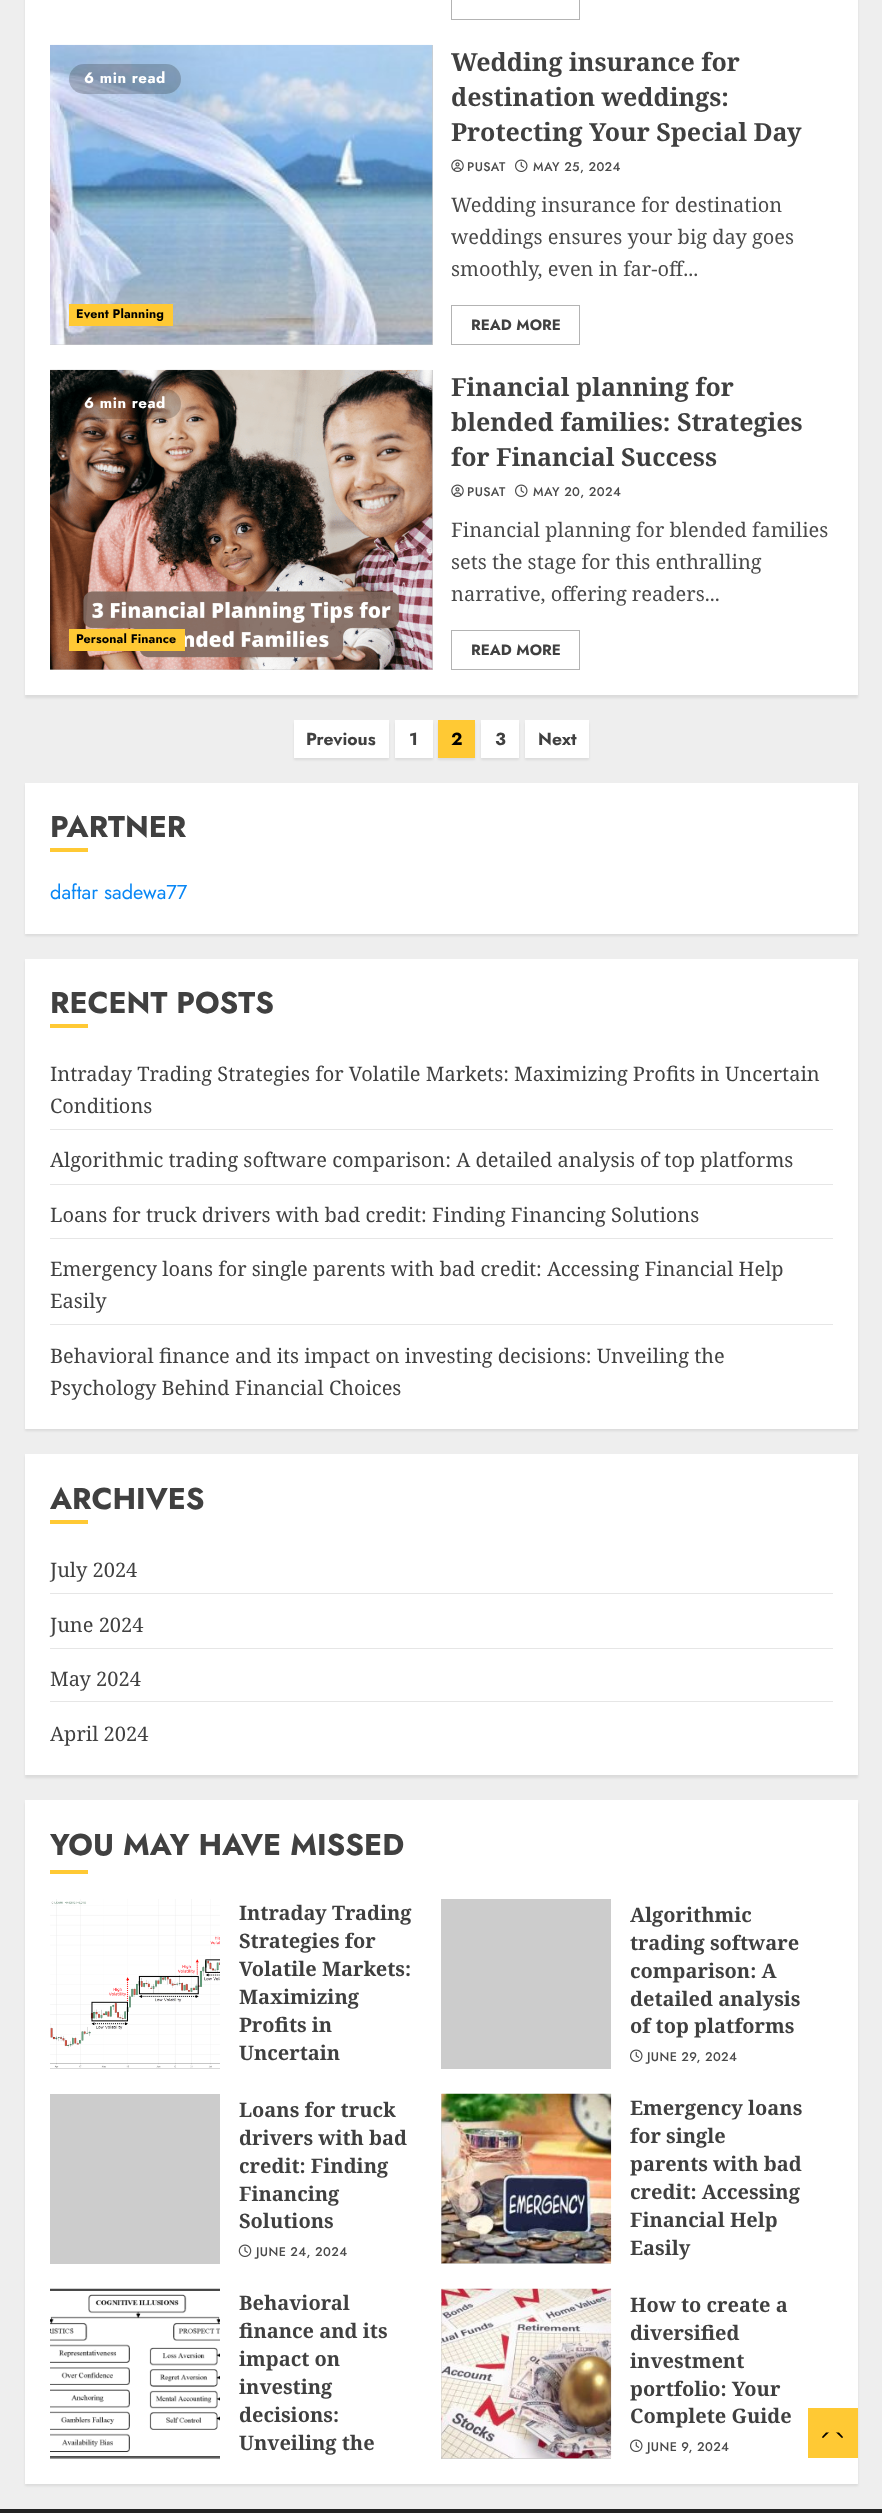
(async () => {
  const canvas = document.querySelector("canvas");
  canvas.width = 882;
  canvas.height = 2513;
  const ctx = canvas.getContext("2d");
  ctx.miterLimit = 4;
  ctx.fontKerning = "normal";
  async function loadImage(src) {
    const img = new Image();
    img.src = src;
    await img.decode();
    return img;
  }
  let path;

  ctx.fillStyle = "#eeeeee";
  ctx.fillRect(0, 0, 882, 2513);
  ctx.fillStyle = "rgba(0, 0, 0, 0.08)";
  ctx.filter = "blur(1px)";
  ctx.beginPath();
  ctx.rect(25, -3, 833, 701);
  ctx.fill();
  ctx.filter = "none";
  ctx.fillStyle = "#ffffff";
  ctx.fillRect(25, 0, 833, 695);
  ctx.strokeStyle = "#b3b3b3";
  ctx.strokeRect(451.5, -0.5, 128, 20);
  ctx.fillStyle = "#cccccc";
  ctx.fillRect(50, 45, 383, 300);
  ctx.drawImage(await loadImage("img/1.png"), 50, 44, 383, 301);
  ctx.fillStyle = "rgba(0, 0, 0, 0.2)";
  ctx.beginPath();
  ctx.roundRect(69, 64, 112, 30, 15);
  ctx.fill();
  ctx.fillStyle = "#ffc934";
  ctx.fillRect(69, 304, 104, 22);
  ctx.drawImage(await loadImage("img/2.png"), 451, 159, 13, 13);
  ctx.drawImage(await loadImage("img/3.png"), 515, 159, 13, 13);
  ctx.strokeRect(451.5, 305.5, 128, 39);
  ctx.fillStyle = "#cccccc";
  ctx.fillRect(50, 370, 383, 300);
  ctx.drawImage(await loadImage("img/4.png"), 50, 369, 383, 301);
  ctx.fillStyle = "rgba(0, 0, 0, 0.2)";
  ctx.beginPath();
  ctx.roundRect(69, 389, 112, 30, 15);
  ctx.fill();
  ctx.fillStyle = "#ffc934";
  ctx.fillRect(69, 629, 116, 22);
  ctx.drawImage(await loadImage("img/2.png"), 451, 484, 13, 13);
  ctx.drawImage(await loadImage("img/3.png"), 515, 484, 13, 13);
  ctx.strokeRect(451.5, 630.5, 128, 39);
  ctx.fillStyle = "rgba(0, 0, 0, 0.08)";
  ctx.filter = "blur(1px)";
  ctx.beginPath();
  ctx.rect(294, 723, 95, 37);
  ctx.fill();
  ctx.filter = "none";
  ctx.fillStyle = "#ffffff";
  ctx.fillRect(294, 720, 95, 38);
  ctx.fillStyle = "rgba(0, 0, 0, 0.08)";
  ctx.filter = "blur(1px)";
  ctx.beginPath();
  ctx.rect(395, 723, 38, 37);
  ctx.fill();
  ctx.filter = "none";
  ctx.fillStyle = "#ffffff";
  ctx.fillRect(395, 720, 38, 38);
  ctx.fillStyle = "rgba(0, 0, 0, 0.08)";
  ctx.filter = "blur(1px)";
  ctx.beginPath();
  ctx.rect(438, 723, 37, 37);
  ctx.fill();
  ctx.filter = "none";
  ctx.fillStyle = "#ffc934";
  ctx.fillRect(438, 720, 37, 38);
  ctx.fillStyle = "rgba(0, 0, 0, 0.08)";
  ctx.filter = "blur(1px)";
  ctx.beginPath();
  ctx.rect(481, 723, 38, 37);
  ctx.fill();
  ctx.filter = "none";
  ctx.fillStyle = "#ffffff";
  ctx.fillRect(481, 720, 38, 38);
  ctx.fillStyle = "rgba(0, 0, 0, 0.08)";
  ctx.filter = "blur(1px)";
  ctx.beginPath();
  ctx.rect(525, 723, 64, 37);
  ctx.fill();
  ctx.filter = "none";
  ctx.fillStyle = "#ffffff";
  ctx.fillRect(525, 720, 64, 38);
  ctx.fillStyle = "rgba(0, 0, 0, 0.08)";
  ctx.filter = "blur(1px)";
  ctx.beginPath();
  ctx.rect(25, 785, 833, 151);
  ctx.fill();
  ctx.filter = "none";
  ctx.fillStyle = "#ffffff";
  ctx.fillRect(25, 783, 833, 151);
  ctx.fillStyle = "#ffc934";
  ctx.fillRect(50, 848, 38, 4);
  ctx.fillStyle = "rgba(0, 0, 0, 0.08)";
  ctx.filter = "blur(1px)";
  ctx.beginPath();
  ctx.rect(25, 961, 833, 470);
  ctx.fill();
  ctx.filter = "none";
  for (const [x, y, w, h, color] of [
    [25, 959, 833, 470, "#ffffff"],
    [50, 1024, 38, 4, "#ffc934"],
    [50, 1129, 783, 1, "#e6e6e6"],
    [50, 1184, 783, 1, "#e6e6e6"],
    [50, 1238, 783, 1, "#e6e6e6"],
    [50, 1324, 783, 1, "#e6e6e6"],
  ]) {
    ctx.fillStyle = color;
    ctx.fillRect(x, y, w, h);
  }
  ctx.fillStyle = "rgba(0, 0, 0, 0.08)";
  ctx.filter = "blur(1px)";
  ctx.beginPath();
  ctx.rect(25, 1456, 833, 322);
  ctx.fill();
  ctx.filter = "none";
  for (const [x, y, w, h, color] of [
    [25, 1454, 833, 321, "#ffffff"],
    [50, 1520, 38, 4, "#ffc934"],
    [50, 1593, 783, 1, "#e6e6e6"],
    [50, 1648, 783, 1, "#e6e6e6"],
    [50, 1701, 783, 1, "#e6e6e6"],
  ]) {
    ctx.fillStyle = color;
    ctx.fillRect(x, y, w, h);
  }
  ctx.fillStyle = "rgba(0, 0, 0, 0.08)";
  ctx.filter = "blur(1px)";
  ctx.beginPath();
  ctx.rect(25, 1803, 833, 683);
  ctx.fill();
  ctx.filter = "none";
  for (const [x, y, w, h, color] of [
    [25, 1800, 833, 684, "#ffffff"],
    [50, 1870, 38, 4, "#ffc934"],
    [50, 2068, 170, 1, "#cccccc"],
  ]) {
    ctx.fillStyle = color;
    ctx.fillRect(x, y, w, h);
  }
  ctx.drawImage(await loadImage("img/5.png"), 50, 1899, 170, 170);
  ctx.fillRect(441, 1899, 170, 170);
  ctx.drawImage(await loadImage("img/3.png"), 630, 2049, 13, 13);
  ctx.fillRect(50, 2094, 170, 170);
  ctx.drawImage(await loadImage("img/6.png"), 238, 2244, 14, 13);
  ctx.fillRect(441, 2094, 170, 170);
  ctx.drawImage(await loadImage("img/7.png"), 441, 2093, 171, 171);
  ctx.fillRect(50, 2458, 170, 1);
  ctx.drawImage(await loadImage("img/8.png"), 50, 2288, 170, 171);
  ctx.fillRect(441, 2289, 170, 170);
  ctx.drawImage(await loadImage("img/9.png"), 441, 2288, 171, 171);
  ctx.drawImage(await loadImage("img/3.png"), 630, 2439, 13, 13);
  ctx.fillStyle = "#222222";
  ctx.fillRect(0, 2509, 882, 4);
  ctx.fillStyle = "#ffc934";
  ctx.fillRect(808, 2408, 50, 50);
  ctx.fillStyle = "#000000";
  path = new Path2D("M824.5 2439C823.5 2438.5 822.5 2438 822 2437L826 2432.5H839L843 2437C842.5 2438 841.5 2438.5 840.5 2439Z");
  ctx.fill(path);
  ctx.fillStyle = "#ffc934";
  path = new Path2D("M845 2441H820L832.5 2429Z");
  ctx.fill(path);
  ctx.letterSpacing = "0.6px";
  ctx.font = "bold 15px Jost";
  ctx.fillStyle = "#ffffff";
  ctx.fillText("6 min read", 84, 83);
  ctx.letterSpacing = "0.1px";
  ctx.font = "bold 12.5px Jost";
  ctx.fillStyle = "#000000";
  ctx.fillText("Event Planning", 76, 318);
  ctx.letterSpacing = "0px";
  ctx.font = "bold 25px Noto Serif";
  ctx.fillStyle = "#404040";
  for (const [text, x, y] of [
    ["Wedding insurance for", 451, 71],
    ["destination weddings:", 451, 106],
    ["Protecting Your Special Day", 451, 141],
  ]) {
    ctx.fillText(text, x, y);
  }
  ctx.letterSpacing = "0.4px";
  ctx.font = "500 12.5px Jost";
  ctx.fillStyle = "#4a4a4a";
  ctx.fillText("PUSAT", 467, 171);
  ctx.fillText("MAY 25, 2024", 533, 171);
  ctx.letterSpacing = "0px";
  ctx.font = "20px Noto Serif";
  for (const [text, x, y] of [
    ["Wedding insurance for destination", 451, 212],
    ["weddings ensures your big day goes", 451, 244],
    ["smoothly, even in far-off...", 451, 276],
  ]) {
    ctx.fillText(text, x, y);
  }
  ctx.font = "bold 15px Jost";
  ctx.fillStyle = "#404040";
  ctx.fillText("READ MORE", 471, 330);
  ctx.letterSpacing = "0.6px";
  ctx.fillStyle = "#ffffff";
  ctx.fillText("6 min read", 84, 408);
  ctx.letterSpacing = "0.1px";
  ctx.font = "bold 12.5px Jost";
  ctx.fillStyle = "#000000";
  ctx.fillText("Personal Finance", 76, 643);
  ctx.letterSpacing = "0px";
  ctx.font = "bold 25px Noto Serif";
  ctx.fillStyle = "#404040";
  for (const [text, x, y] of [
    ["Financial planning for", 451, 396],
    ["blended families: Strategies", 451, 431],
    ["for Financial Success", 451, 466],
  ]) {
    ctx.fillText(text, x, y);
  }
  ctx.letterSpacing = "0.4px";
  ctx.font = "500 12.5px Jost";
  ctx.fillStyle = "#4a4a4a";
  ctx.fillText("PUSAT", 467, 496);
  ctx.fillText("MAY 20, 2024", 533, 496);
  ctx.letterSpacing = "0px";
  ctx.font = "20px Noto Serif";
  for (const [text, x, y] of [
    ["Financial planning for blended families", 451, 537],
    ["sets the stage for this enthralling", 451, 569],
    ["narrative, offering readers...", 451, 601],
  ]) {
    ctx.fillText(text, x, y);
  }
  ctx.font = "bold 15px Jost";
  ctx.fillStyle = "#404040";
  ctx.fillText("READ MORE", 471, 655);
  ctx.font = "bold 17.5px Jost";
  ctx.fillText("Previous", 306, 745);
  ctx.fillText("1", 409, 745);
  ctx.fillStyle = "#000000";
  ctx.fillText("2", 451, 745);
  ctx.fillStyle = "#404040";
  ctx.fillText("3", 495, 745);
  ctx.fillText("Next", 538, 745);
  ctx.font = "bold 30px Jost";
  ctx.fillText("PARTNER", 50, 837);
  ctx.font = "20px Jost";
  ctx.fillStyle = "#0987f5";
  ctx.fillText("daftar sadewa77", 50, 899);
  ctx.font = "bold 30px Jost";
  ctx.fillStyle = "#404040";
  ctx.fillText("RECENT POSTS", 50, 1013);
  ctx.font = "20px Noto Serif";
  for (const [text, x, y] of [
    ["Intraday Trading Strategies for Volatile Markets: Maximizing Profits in Uncertain", 50, 1081],
    ["Conditions", 50, 1113],
    ["Algorithmic trading software comparison: A detailed analysis of top platforms", 50, 1167],
    ["Loans for truck drivers with bad credit: Finding Financing Solutions", 50, 1222],
    ["Emergency loans for single parents with bad credit: Accessing Financial Help", 50, 1276],
    ["Easily", 50, 1308],
    ["Behavioral finance and its impact on investing decisions: Unveiling the", 50, 1363],
    ["Psychology Behind Financial Choices", 50, 1395],
  ]) {
    ctx.fillText(text, x, y);
  }
  ctx.font = "bold 30px Jost";
  ctx.fillText("ARCHIVES", 50, 1509);
  ctx.font = "20px Noto Serif";
  for (const [text, x, y] of [
    ["July 2024", 50, 1577],
    ["June 2024", 50, 1632],
    ["May 2024", 50, 1686],
    ["April 2024", 50, 1741],
  ]) {
    ctx.fillText(text, x, y);
  }
  ctx.font = "bold 30px Jost";
  ctx.fillText("YOU MAY HAVE MISSED", 50, 1855);
  ctx.font = "bold 20px Noto Serif";
  for (const [text, x, y] of [
    ["Intraday Trading", 239, 1920],
    ["Strategies for", 239, 1948],
    ["Volatile Markets:", 239, 1976],
    ["Maximizing", 239, 2004],
    ["Profits in", 239, 2032],
    ["Uncertain", 239, 2060],
    ["Algorithmic", 630, 1922],
    ["trading software", 630, 1950],
    ["comparison: A", 630, 1978],
    ["detailed analysis", 630, 2006],
    ["of top platforms", 630, 2033],
  ]) {
    ctx.fillText(text, x, y);
  }
  ctx.letterSpacing = "0.4px";
  ctx.font = "500 12.5px Jost";
  ctx.fillStyle = "#4a4a4a";
  ctx.fillText("JUNE 29, 2024", 647, 2061);
  ctx.letterSpacing = "0px";
  ctx.font = "bold 20px Noto Serif";
  ctx.fillStyle = "#404040";
  for (const [text, x, y] of [
    ["Loans for truck", 239, 2117],
    ["drivers with bad", 239, 2145],
    ["credit: Finding", 239, 2173],
    ["Financing", 239, 2201],
    ["Solutions", 239, 2228],
  ]) {
    ctx.fillText(text, x, y);
  }
  ctx.letterSpacing = "0.4px";
  ctx.font = "500 12.5px Jost";
  ctx.fillStyle = "#4a4a4a";
  ctx.fillText("JUNE 24, 2024", 256, 2256);
  ctx.letterSpacing = "0px";
  ctx.font = "bold 20px Noto Serif";
  ctx.fillStyle = "#404040";
  for (const [text, x, y] of [
    ["Emergency loans", 630, 2115],
    ["for single", 630, 2143],
    ["parents with bad", 630, 2171],
    ["credit: Accessing", 630, 2199],
    ["Financial Help", 630, 2227],
    ["Easily", 630, 2255],
    ["Behavioral", 239, 2310],
    ["finance and its", 239, 2338],
    ["impact on", 239, 2366],
    ["investing", 239, 2394],
    ["decisions:", 239, 2422],
    ["Unveiling the", 239, 2450],
    ["How to create a", 630, 2312],
    ["diversified", 630, 2340],
    ["investment", 630, 2368],
    ["portfolio: Your", 630, 2396],
    ["Complete Guide", 630, 2423],
  ]) {
    ctx.fillText(text, x, y);
  }
  ctx.letterSpacing = "0.4px";
  ctx.font = "500 12.5px Jost";
  ctx.fillStyle = "#4a4a4a";
  ctx.fillText("JUNE 9, 2024", 647, 2451);
})();
